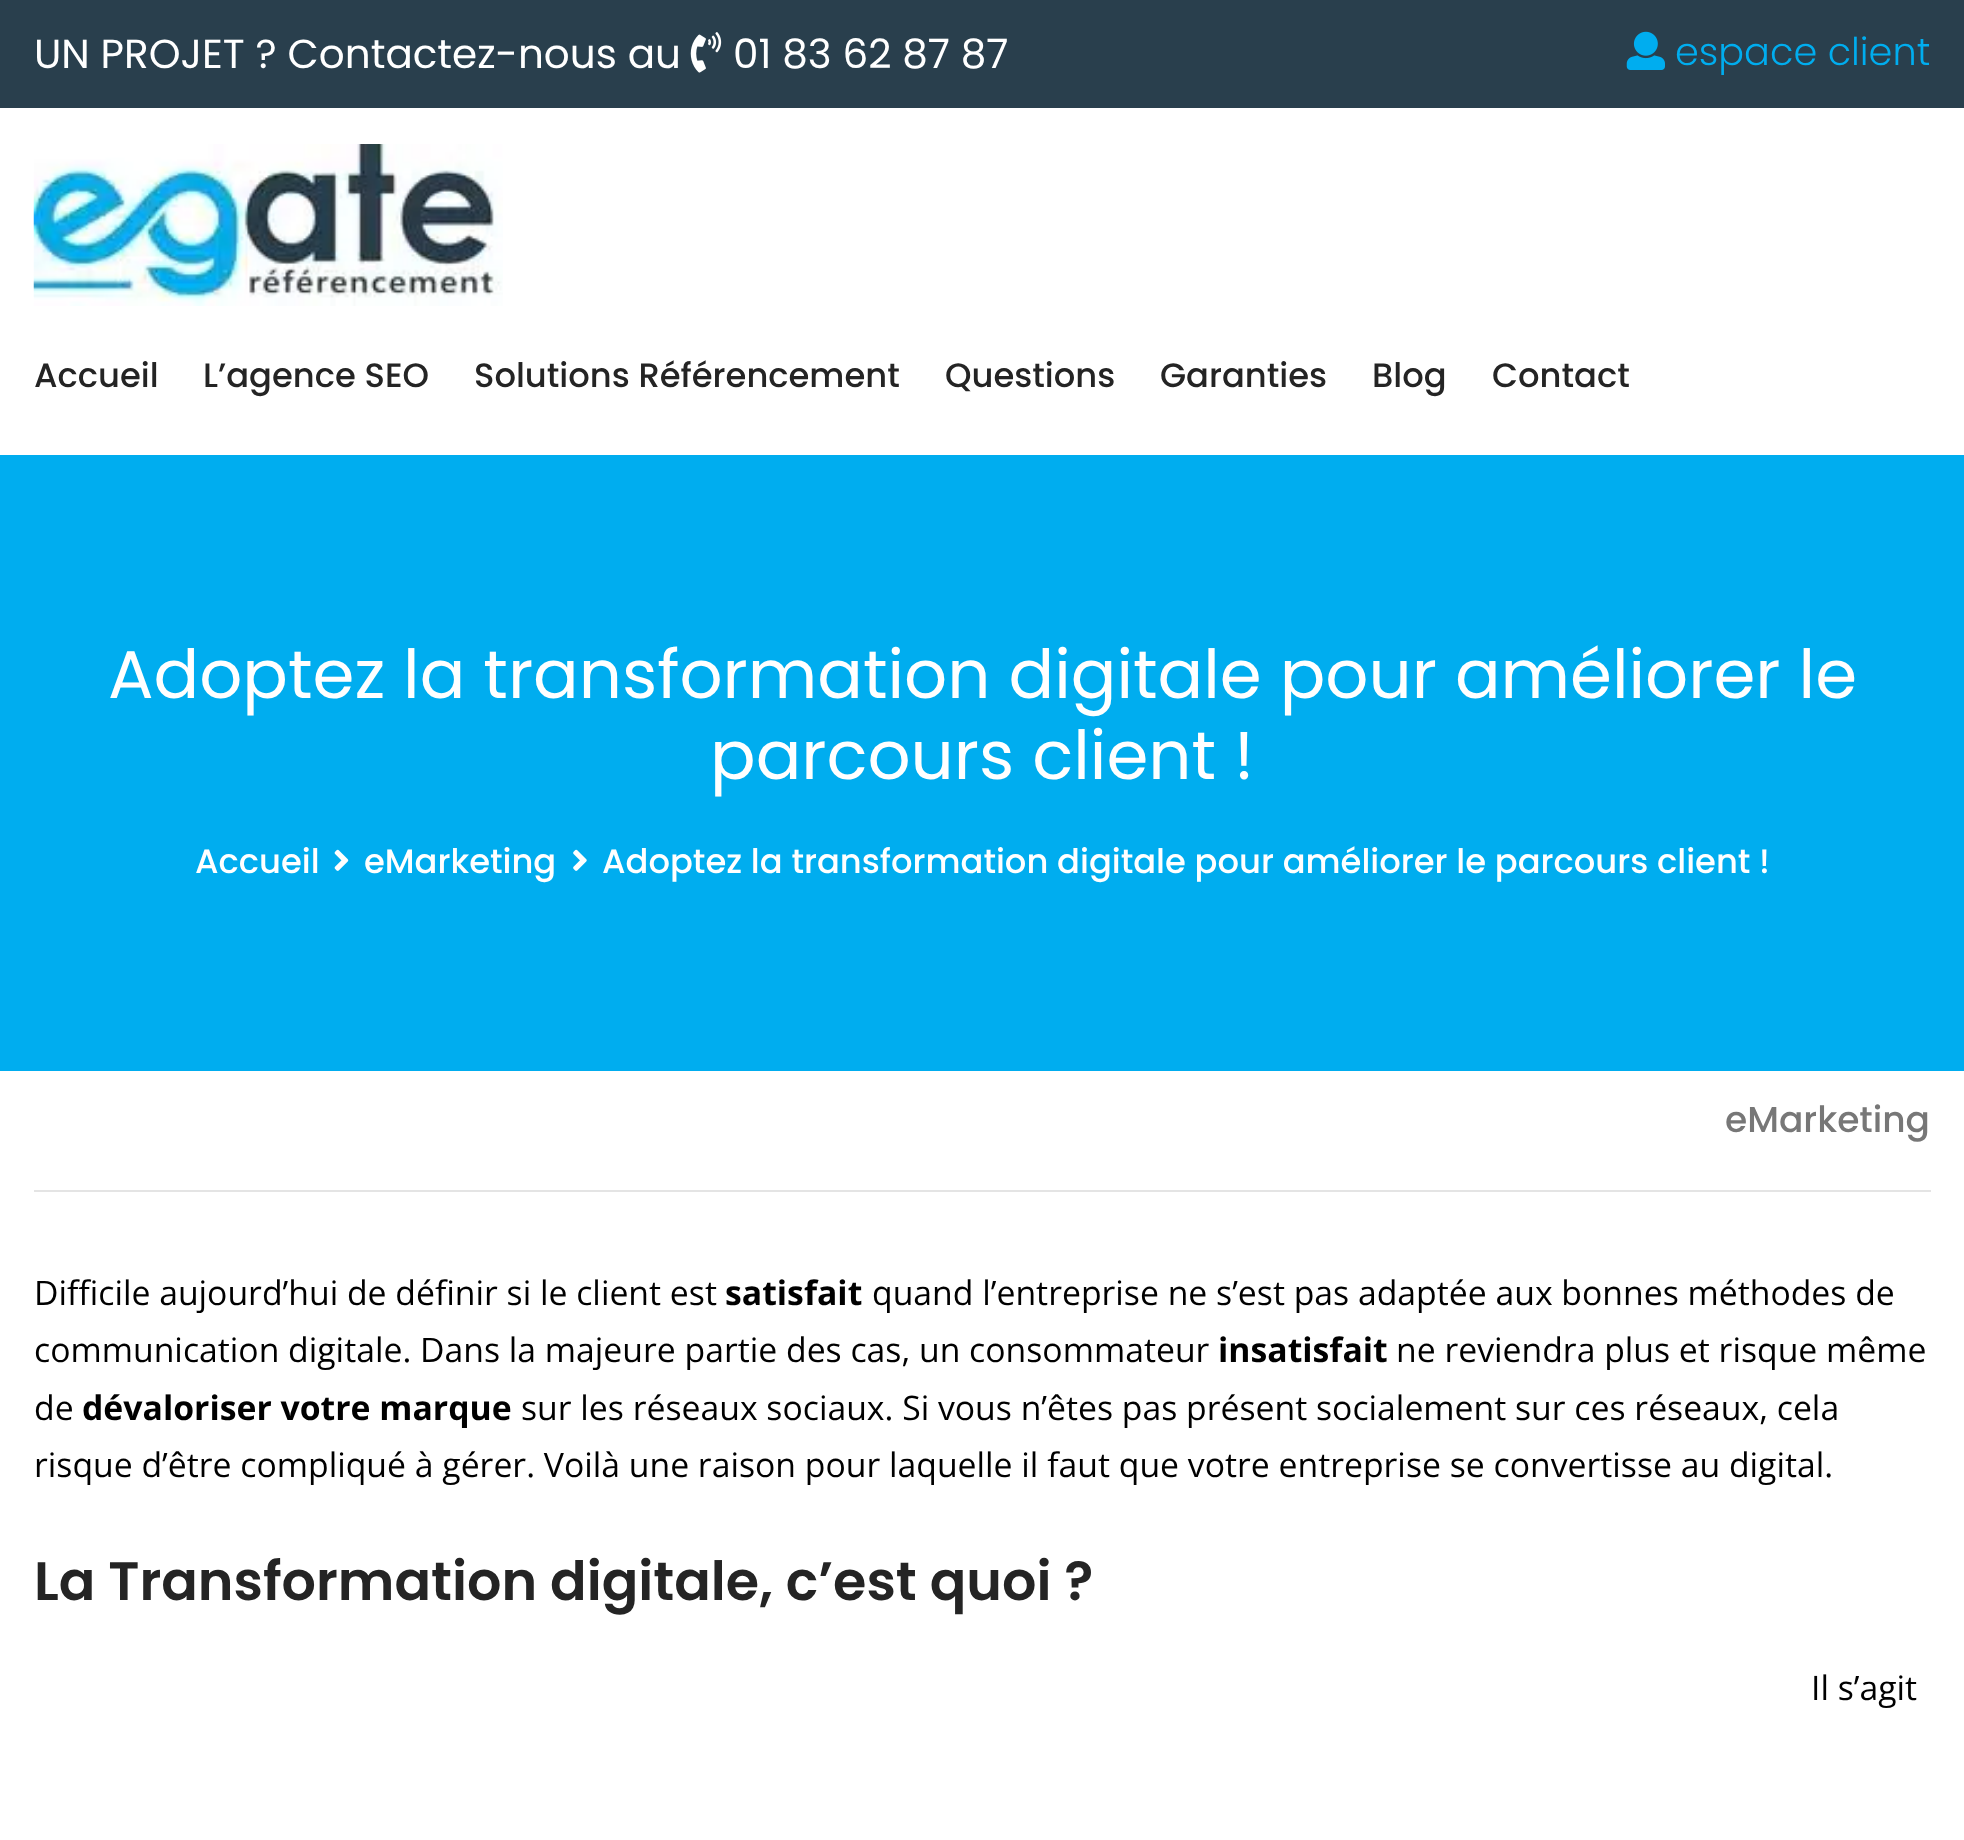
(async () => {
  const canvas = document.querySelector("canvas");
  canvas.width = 1964;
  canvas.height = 1840;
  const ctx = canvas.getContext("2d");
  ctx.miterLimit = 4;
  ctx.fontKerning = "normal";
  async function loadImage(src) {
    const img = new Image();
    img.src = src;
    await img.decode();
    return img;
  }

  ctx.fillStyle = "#ffffff";
  ctx.fillRect(0, 0, 1964, 1840);
  ctx.fillStyle = "#293f4d";
  ctx.fillRect(0, 0, 1964, 108);
  ctx.drawImage(await loadImage("img/1.png"), 690, 32, 32, 41);
  ctx.drawImage(await loadImage("img/2.png"), 1626, 31, 39, 39);
  ctx.drawImage(await loadImage("img/3.png"), 33, 144, 470, 162);
  ctx.fillStyle = "#00adef";
  ctx.fillRect(0, 455, 1964, 616);
  ctx.drawImage(await loadImage("img/4.png"), 334, 849, 15, 22);
  ctx.drawImage(await loadImage("img/5.png"), 573, 849, 14, 22);
  ctx.fillStyle = "#e4e4e4";
  ctx.fillRect(34, 1190, 1897, 2);
  ctx.font = "40.5px Poppins";
  ctx.fillStyle = "#ffffff";
  ctx.fillText("UN PROJET ? Contactez-nous au", 34, 68);
  ctx.fillText("01 83 62 87 87", 733, 68);
  ctx.font = "300 38.25px Poppins";
  ctx.fillStyle = "#00adef";
  ctx.fillText("espace client", 1675, 65);
  ctx.font = "500 33.75px Poppins";
  ctx.fillStyle = "#242424";
  for (const [text, x, y] of [
    ["Accueil", 34, 387],
    ["L’agence SEO", 203, 387],
    ["Solutions Référencement", 474, 387],
    ["Questions", 945, 387],
    ["Garanties", 1160, 387],
    ["Blog", 1372, 387],
    ["Contact", 1492, 387],
  ]) {
    ctx.fillText(text, x, y);
  }
  ctx.font = "67.5px Poppins";
  ctx.fillStyle = "#ffffff";
  ctx.fillText("Adoptez la transformation digitale pour améliorer le", 108, 698);
  ctx.fillText("parcours client !", 710, 779);
  ctx.font = "500 33.75px Poppins";
  for (const [text, x, y] of [
    ["Accueil", 195, 873],
    ["eMarketing", 364, 873],
    ["Adoptez la transformation digitale pour améliorer le parcours client !", 602, 873],
  ]) {
    ctx.fillText(text, x, y);
  }
  ctx.font = "500 36px Poppins";
  ctx.fillStyle = "#777777";
  ctx.fillText("eMarketing", 1725, 1132);
  ctx.font = "33.75px Open Sans";
  ctx.fillStyle = "#000000";
  ctx.fillText("Difficile aujourd’hui de définir si le client est", 34, 1305);
  ctx.font = "bold 33.75px Open Sans";
  ctx.fillText("satisfait", 725, 1305);
  ctx.font = "33.75px Open Sans";
  ctx.fillText("quand l’entreprise ne s’est pas adaptée aux bonnes méthodes de", 872, 1305);
  ctx.fillText("communication digitale. Dans la majeure partie des cas, un consommateur", 34, 1362);
  ctx.font = "bold 33.75px Open Sans";
  ctx.fillText("insatisfait", 1218, 1362);
  ctx.font = "33.75px Open Sans";
  ctx.fillText("ne reviendra plus et risque même", 1396, 1362);
  ctx.fillText("de", 34, 1420);
  ctx.font = "bold 33.75px Open Sans";
  ctx.fillText("dévaloriser votre marque", 82, 1420);
  ctx.font = "33.75px Open Sans";
  ctx.fillText("sur les réseaux sociaux. Si vous n’êtes pas présent socialement sur ces réseaux, cela", 521, 1420);
  ctx.fillText("risque d’être compliqué à gérer. Voilà une raison pour laquelle il faut que votre entreprise se convertisse au digital.", 34, 1477);
  ctx.font = "600 54px Poppins";
  ctx.fillStyle = "#242424";
  ctx.fillText("La Transformation digitale, c’est quoi ?", 34, 1600);
  ctx.font = "33.75px Open Sans";
  ctx.fillStyle = "#000000";
  ctx.fillText("Il s’agit", 1811, 1700);
})();
